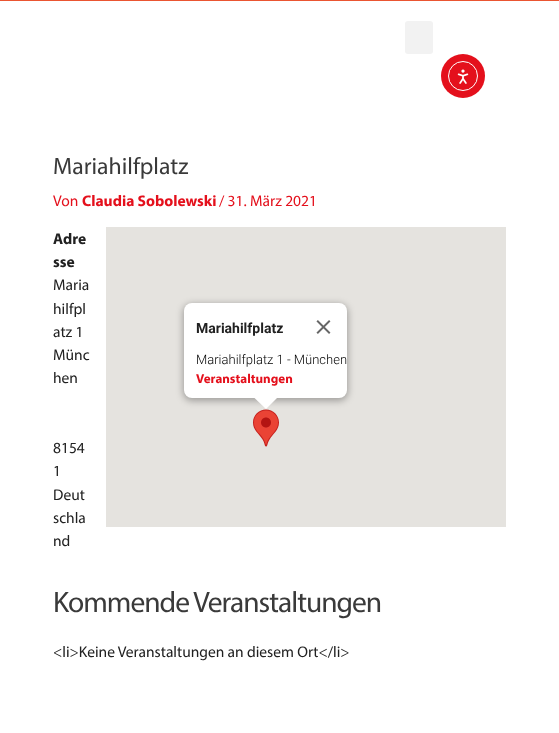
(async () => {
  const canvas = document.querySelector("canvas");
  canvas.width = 559;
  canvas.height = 733;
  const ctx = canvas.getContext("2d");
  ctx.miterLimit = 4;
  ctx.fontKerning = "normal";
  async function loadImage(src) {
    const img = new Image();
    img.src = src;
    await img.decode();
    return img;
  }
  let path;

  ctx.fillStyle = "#ffffff";
  ctx.fillRect(0, 0, 559, 733);
  ctx.fillStyle = "#e4101c";
  ctx.beginPath();
  ctx.arc(463, 76, 22, 0, Math.PI * 2);
  ctx.fill();
  ctx.beginPath();
  ctx.arc(463, 76, 14.5, 0, Math.PI * 2);
  ctx.strokeStyle = "#ffffff";
  ctx.stroke();
  ctx.drawImage(await loadImage("img/1.png"), 457, 69, 12, 15);
  ctx.fillStyle = "#ea5531";
  ctx.fillRect(0, 0, 559, 1);
  ctx.fillStyle = "#f2f2f2";
  ctx.beginPath();
  ctx.roundRect(405, 21, 28, 33, 3);
  ctx.fill();
  ctx.fillStyle = "#e5e3df";
  ctx.fillRect(106, 227, 400, 300);
  ctx.drawImage(await loadImage("img/3.png"), 253, 409, 26, 38);
  ctx.fillStyle = "rgba(0, 0, 0, 0.3)";
  ctx.filter = "blur(3.5px)";
  ctx.beginPath();
  ctx.roundRect(183, 304, 165, 97, 9);
  ctx.fill();
  ctx.filter = "none";
  ctx.fillStyle = "#ffffff";
  ctx.beginPath();
  ctx.roundRect(184, 303, 163, 95, 8);
  ctx.fill();
  ctx.drawImage(await loadImage("img/2.png"), 316, 320, 15, 14);
  path = new Path2D("M254 397V397.5L266 409L278 397Z");
  ctx.fill(path);
  ctx.font = "23.75px Myriad";
  ctx.fillStyle = "#3a3a3a";
  ctx.fillText("Mariahilfplatz", 53, 174);
  ctx.font = "15.5px Myriad";
  ctx.fillStyle = "#e4101c";
  ctx.fillText("Von", 53, 206);
  ctx.font = "bold 15.5px Myriad";
  ctx.fillText("Claudia Sobolewski", 82, 206);
  ctx.font = "15.5px Myriad";
  ctx.fillText("/ 31. März 2021", 219, 206);
  ctx.font = "bold 15.5px Myriad";
  ctx.fillStyle = "#212121";
  ctx.fillText("Adre", 53, 244);
  ctx.fillText("sse", 53, 267);
  ctx.font = "15.5px Myriad";
  for (const [text, x, y] of [
    ["Maria", 53, 290],
    ["hilfpl", 53, 314],
    ["atz 1", 53, 337],
    ["Münc", 53, 360],
    ["hen", 53, 383],
    ["8154", 53, 453],
    ["1", 53, 476],
    ["Deut", 53, 500],
    ["schla", 53, 523],
    ["nd", 53, 546],
  ]) {
    ctx.fillText(text, x, y);
  }
  ctx.font = "bold 14px Roboto";
  ctx.fillText("Mariahilfplatz", 196, 333);
  ctx.font = "300 13px Roboto";
  ctx.fillStyle = "#000000";
  ctx.fillText("Mariahilfplatz 1 - München", 196, 364);
  ctx.font = "bold 13px Myriad";
  ctx.fillStyle = "#e4101c";
  ctx.fillText("Veranstaltungen", 196, 383);
  ctx.letterSpacing = "-1px";
  ctx.font = "29.5px Myriad";
  ctx.fillStyle = "#3a3a3a";
  ctx.fillText("Kommende Veranstaltungen", 53, 612);
  ctx.letterSpacing = "0px";
  ctx.font = "15.5px Myriad";
  ctx.fillStyle = "#212121";
  ctx.fillText("<li>Keine Veranstaltungen an diesem Ort<\/li>", 53, 657);
})();
